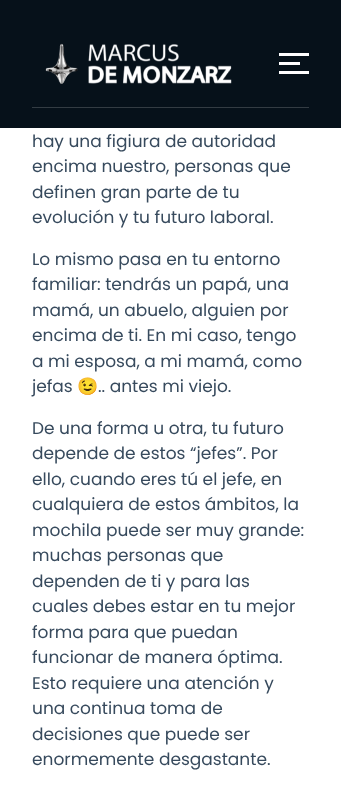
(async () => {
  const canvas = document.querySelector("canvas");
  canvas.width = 341;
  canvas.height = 792;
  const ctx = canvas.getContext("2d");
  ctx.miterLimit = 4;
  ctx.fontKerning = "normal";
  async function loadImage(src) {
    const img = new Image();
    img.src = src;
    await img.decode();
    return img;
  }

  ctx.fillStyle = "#ffffff";
  ctx.fillRect(0, 0, 341, 792);
  ctx.fillStyle = "#06111a";
  ctx.fillRect(0, 0, 341, 128);
  ctx.fillStyle = "#333c43";
  ctx.fillRect(32, 107, 277, 1);
  ctx.drawImage(await loadImage("img/1.png"), 45, 43, 187, 41);
  for (const [x, y, w, h, color] of [
    [279, 53, 30, 3, "#ffffff"],
    [279, 62, 21, 3, "#ffffff"],
    [279, 71, 30, 3, "#ffffff"],
  ]) {
    ctx.fillStyle = color;
    ctx.fillRect(x, y, w, h);
  }
  ctx.font = "17px Poppins";
  ctx.fillStyle = "#374a5d";
  for (const [text, x, y] of [
    ["hay una figiura de autoridad", 32, 147],
    ["encima nuestro, personas que", 32, 172],
    ["definen gran parte de tu", 32, 198],
    ["evolución y tu futuro laboral.", 32, 223],
    ["Lo mismo pasa en tu entorno", 32, 265],
    ["familiar: tendrás un papá, una", 32, 290],
    ["mamá, un abuelo, alguien por", 32, 316],
    ["encima de ti. En mi caso, tengo", 32, 341],
    ["a mi esposa, a mi mamá, como", 32, 367],
    ["jefas", 32, 392],
  ]) {
    ctx.fillText(text, x, y);
  }
  ctx.font = "17px Noto Color Emoji";
  ctx.fillText("😉", 77, 392);
  ctx.font = "17px Poppins";
  for (const [text, x, y] of [
    [".. antes mi viejo.", 98, 392],
    ["De una forma u otra, tu futuro", 32, 434],
    ["depende de estos “jefes”. Por", 32, 459],
    ["ello, cuando eres tú el jefe, en", 32, 485],
    ["cualquiera de estos ámbitos, la", 32, 510],
    ["mochila puede ser muy grande:", 32, 536],
    ["muchas personas que", 32, 561],
    ["dependen de ti y para las", 32, 587],
    ["cuales debes estar en tu mejor", 32, 612],
    ["forma para que puedan", 32, 638],
    ["funcionar de manera óptima.", 32, 663],
    ["Esto requiere una atención y", 32, 689],
    ["una continua toma de", 32, 714],
    ["decisiones que puede ser", 32, 740],
    ["enormemente desgastante.", 32, 765],
  ]) {
    ctx.fillText(text, x, y);
  }
})();
